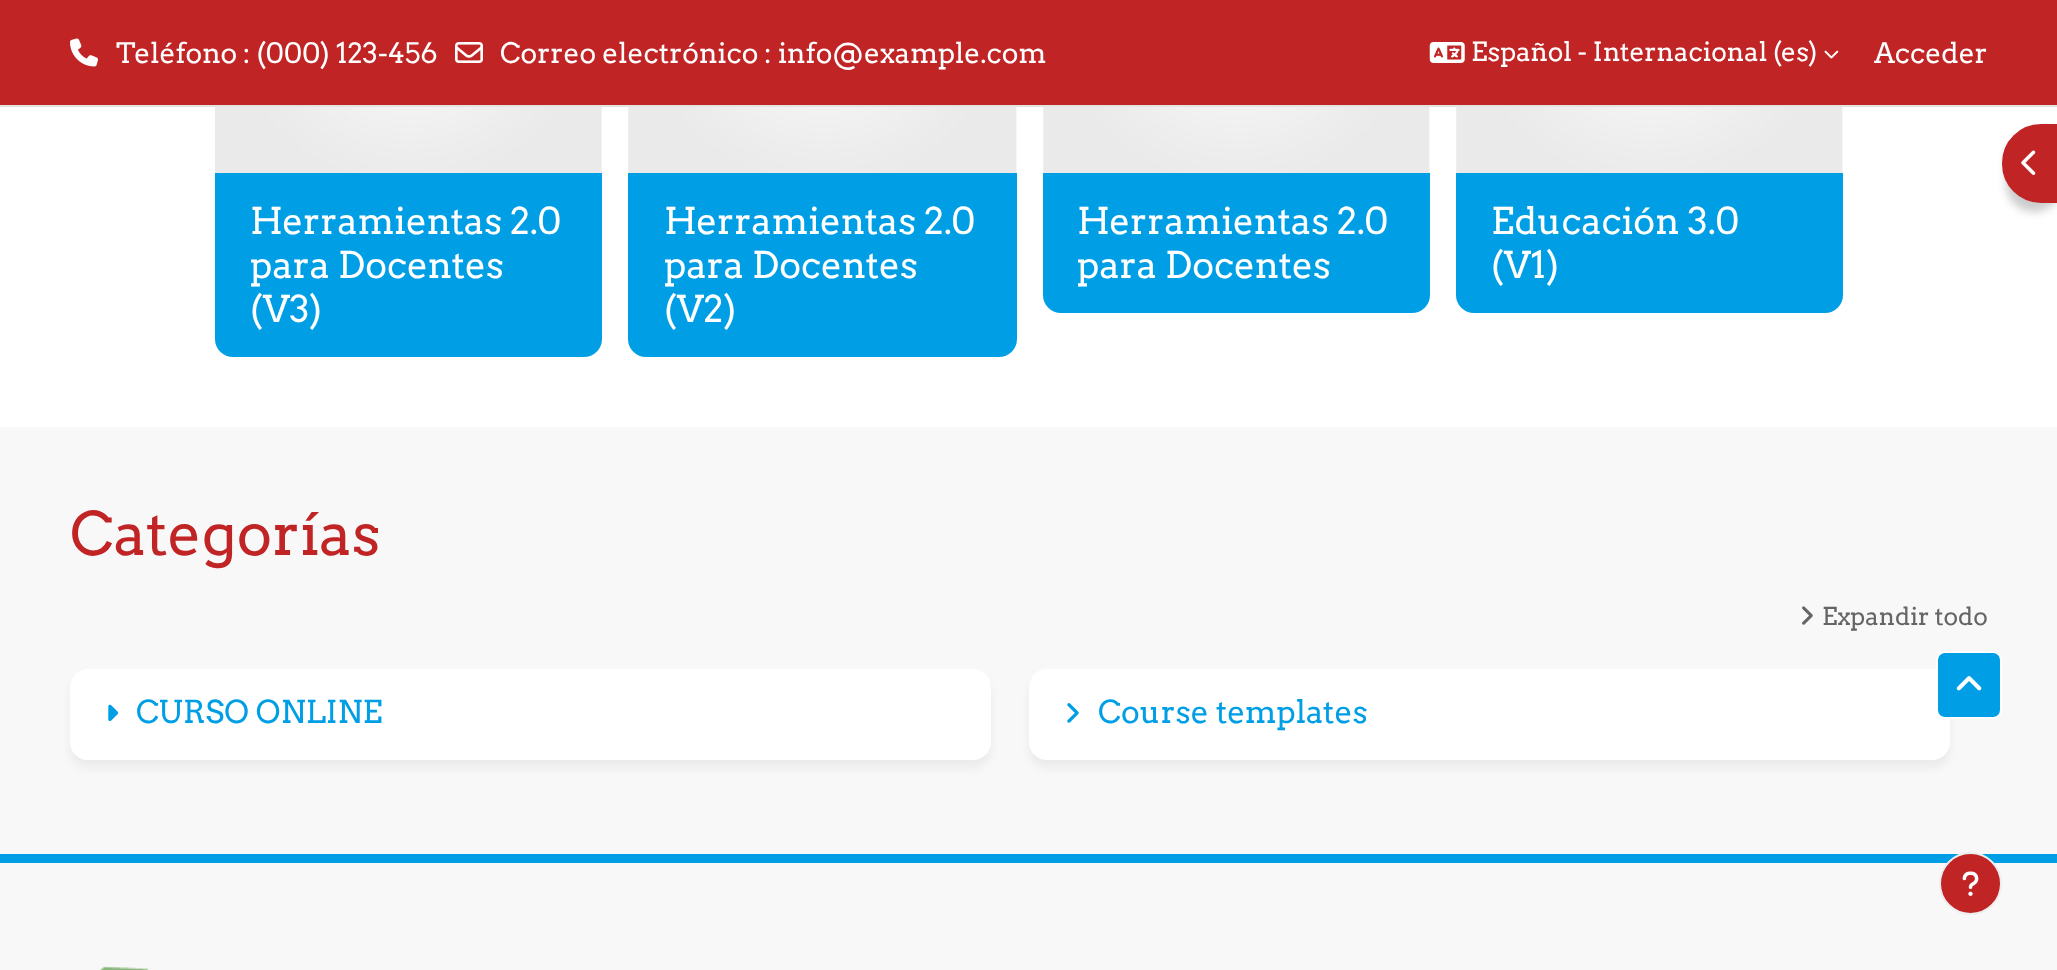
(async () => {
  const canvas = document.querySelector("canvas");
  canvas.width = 2057;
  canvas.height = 970;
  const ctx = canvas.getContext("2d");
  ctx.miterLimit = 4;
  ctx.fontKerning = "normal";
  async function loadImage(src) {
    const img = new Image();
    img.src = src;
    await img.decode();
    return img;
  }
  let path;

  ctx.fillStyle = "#ffffff";
  ctx.fillRect(0, 0, 2057, 970);
  ctx.fillStyle = "#c02424";
  ctx.fillRect(0, 0, 2057, 105);
  ctx.fillStyle = "#e8e3e3";
  ctx.fillRect(0, 105, 2057, 2);
  ctx.drawImage(await loadImage("img/1.png"), 70, 38, 28, 29);
  ctx.drawImage(await loadImage("img/2.png"), 455, 42, 28, 21);
  ctx.drawImage(await loadImage("img/3.png"), 1429, 42, 36, 21);
  ctx.drawImage(await loadImage("img/4.png"), 1824, 50, 15, 9);
  ctx.fillStyle = "rgba(0, 0, 0, 0.2)";
  ctx.filter = "blur(4.5px)";
  ctx.beginPath();
  ctx.roundRect(2006, 133, 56, 79, 39);
  ctx.fill();
  ctx.filter = "none";
  ctx.fillStyle = "#c02424";
  path = new Path2D("M2041 125H2057V202H2041C2020 202 2003 185 2003 164V163C2003 142 2020 125 2041 125Z");
  ctx.fill(path);
  ctx.strokeStyle = "#c02424";
  ctx.lineWidth = 2;
  ctx.stroke(path);
  ctx.drawImage(await loadImage("img/5.png"), 2021, 150, 15, 25);
  ctx.drawImage(await loadImage("img/6.png"), 215, 107, 387, 66);
  ctx.fillStyle = "#009fe5";
  ctx.beginPath();
  ctx.roundRect(215, 173, 387, 184, [0, 0, 18, 18]);
  ctx.fill();
  ctx.drawImage(await loadImage("img/7.png"), 628, 107, 389, 66);
  ctx.beginPath();
  ctx.roundRect(628, 173, 389, 184, [0, 0, 18, 18]);
  ctx.fill();
  ctx.drawImage(await loadImage("img/8.png"), 1043, 107, 387, 66);
  ctx.beginPath();
  ctx.roundRect(1043, 173, 387, 140, [0, 0, 18, 18]);
  ctx.fill();
  ctx.drawImage(await loadImage("img/8.png"), 1456, 107, 387, 66);
  ctx.beginPath();
  ctx.roundRect(1456, 173, 387, 140, [0, 0, 18, 18]);
  ctx.fill();
  ctx.fillStyle = "#f8f8f8";
  ctx.fillRect(0, 427, 2057, 427);
  ctx.drawImage(await loadImage("img/9.png"), 1802, 606, 11, 19);
  ctx.fillStyle = "rgba(0, 0, 0, 0.05)";
  ctx.filter = "blur(4.5px)";
  ctx.beginPath();
  ctx.roundRect(70, 677, 921, 91, 18);
  ctx.fill();
  ctx.filter = "none";
  ctx.fillStyle = "#ffffff";
  ctx.beginPath();
  ctx.roundRect(70, 669, 921, 91, 18);
  ctx.fill();
  ctx.drawImage(await loadImage("img/10.png"), 108, 704, 11, 18);
  ctx.fillStyle = "rgba(0, 0, 0, 0.05)";
  ctx.filter = "blur(4.5px)";
  ctx.beginPath();
  ctx.roundRect(1029, 677, 921, 91, 18);
  ctx.fill();
  ctx.filter = "none";
  ctx.fillStyle = "#ffffff";
  ctx.beginPath();
  ctx.roundRect(1029, 669, 921, 91, 18);
  ctx.fill();
  ctx.drawImage(await loadImage("img/11.png"), 1067, 703, 12, 20);
  ctx.fillStyle = "#009fe5";
  ctx.beginPath();
  ctx.roundRect(1937, 652, 64, 66, 8);
  ctx.fill();
  ctx.strokeStyle = "#ffffff";
  ctx.stroke();
  ctx.drawImage(await loadImage("img/12.png"), 1956, 676, 26, 15);
  ctx.fillStyle = "#f8f8f8";
  ctx.fillRect(0, 863, 2057, 107);
  ctx.fillStyle = "#009fe5";
  ctx.fillRect(0, 854, 2057, 9);
  ctx.fillStyle = "#c02424";
  ctx.beginPath();
  ctx.arc(1970.5, 883.5, 30.5, 0, Math.PI * 2);
  ctx.fill();
  ctx.strokeStyle = "#eeeeee";
  ctx.stroke();
  ctx.drawImage(await loadImage("img/13.png"), 1962, 871, 17, 25);
  ctx.drawImage(await loadImage("img/14.png"), 100, 966, 50, 4);
  ctx.font = "28px Arvo";
  ctx.fillStyle = "#ffffff";
  ctx.fillText("Teléfono : (000) 123-456", 116, 63);
  ctx.fillText("Correo electrónico : info@example.com", 500, 63);
  ctx.font = "26.25px Arvo";
  ctx.fillText("Español - Internacional (es)", 1471, 61);
  ctx.font = "28px Arvo";
  ctx.fillText("Acceder", 1874, 63);
  ctx.font = "36.75px Arvo";
  for (const [text, x, y] of [
    ["Herramientas 2.0", 250, 234],
    ["para Docentes", 250, 278],
    ["(V3)", 250, 322],
    ["Herramientas 2.0", 664, 234],
    ["para Docentes", 664, 278],
    ["(V2)", 664, 322],
    ["Herramientas 2.0", 1077, 234],
    ["para Docentes", 1077, 278],
    ["Educación 3.0", 1491, 234],
    ["(V1)", 1491, 278],
  ]) {
    ctx.fillText(text, x, y);
  }
  ctx.font = "59.5px Arvo";
  ctx.fillStyle = "#c02424";
  ctx.fillText("Categorías", 70, 555);
  ctx.font = "24.5px Arvo";
  ctx.fillStyle = "#656565";
  ctx.fillText("Expandir todo", 1822, 625);
  ctx.font = "31.5px Arvo";
  ctx.fillStyle = "#009fe5";
  ctx.fillText("CURSO ONLINE", 136, 723);
  ctx.fillText("Course templates", 1098, 723);
})();
